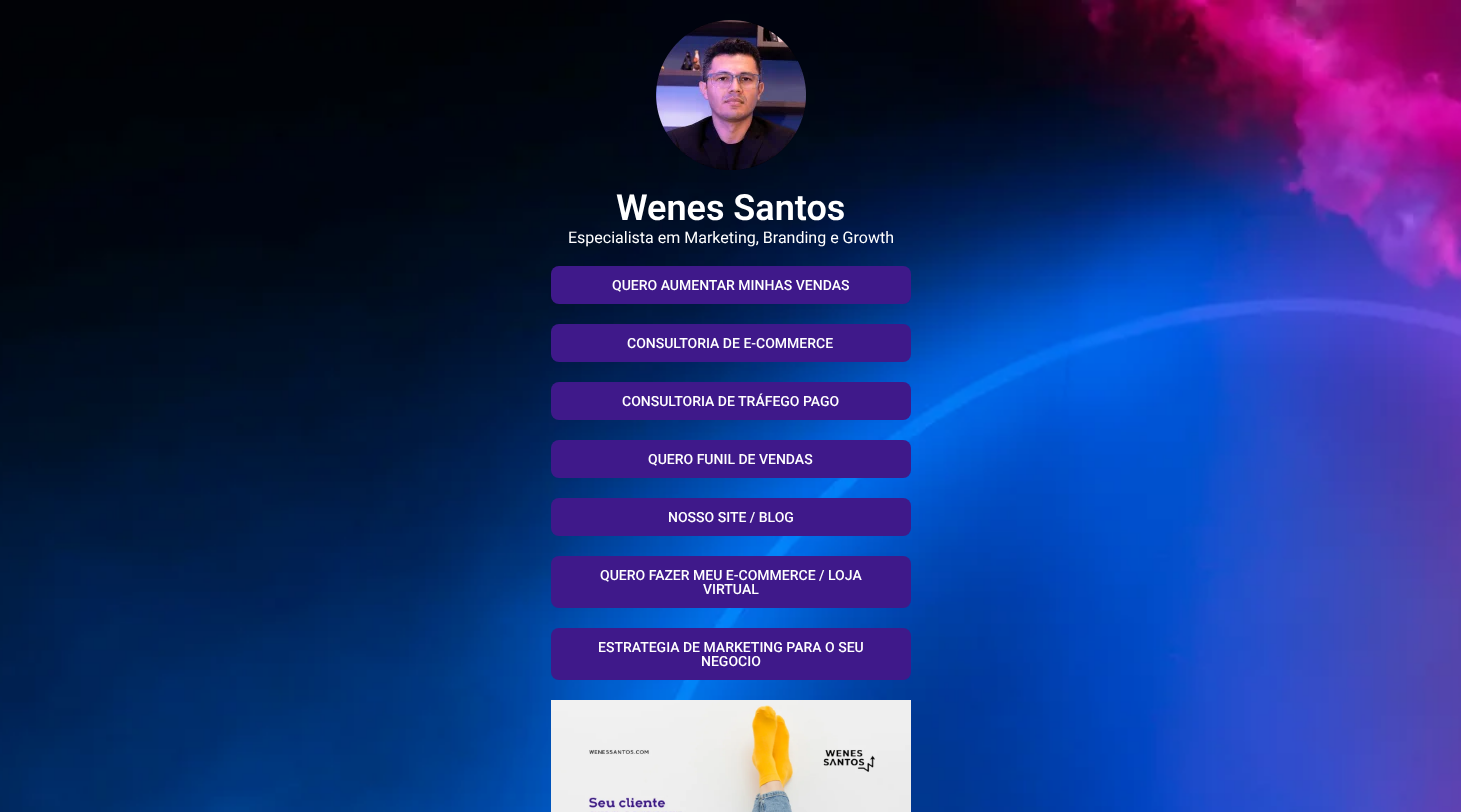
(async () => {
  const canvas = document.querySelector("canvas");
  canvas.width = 1461;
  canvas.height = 812;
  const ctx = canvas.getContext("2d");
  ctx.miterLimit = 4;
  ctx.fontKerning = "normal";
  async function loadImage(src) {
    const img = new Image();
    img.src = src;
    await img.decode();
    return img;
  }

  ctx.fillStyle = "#ffffff";
  ctx.fillRect(0, 0, 1461, 812);
  ctx.drawImage(await loadImage("img/1.png"), 0, 0, 1461, 812);
  ctx.drawImage(await loadImage("img/2.png"), 656, 20, 150, 150);
  ctx.fillStyle = "#3f198a";
  ctx.beginPath();
  ctx.roundRect(551, 266, 360, 38, 8);
  ctx.fill();
  ctx.beginPath();
  ctx.roundRect(551, 324, 360, 38, 8);
  ctx.fill();
  ctx.beginPath();
  ctx.roundRect(551, 382, 360, 38, 8);
  ctx.fill();
  ctx.beginPath();
  ctx.roundRect(551, 440, 360, 38, 8);
  ctx.fill();
  ctx.beginPath();
  ctx.roundRect(551, 498, 360, 38, 8);
  ctx.fill();
  ctx.beginPath();
  ctx.roundRect(551, 556, 360, 52, 8);
  ctx.fill();
  ctx.beginPath();
  ctx.roundRect(551, 628, 360, 52, 8);
  ctx.fill();
  ctx.drawImage(await loadImage("img/3.png"), 551, 700, 360, 112);
  ctx.font = "600 36px Roboto";
  ctx.fillStyle = "#ffffff";
  ctx.fillText("Wenes Santos", 616, 220);
  ctx.font = "16px Roboto";
  ctx.fillText("Especialista em Marketing, Branding e Growth", 568, 243);
  ctx.font = "500 14px Roboto";
  for (const [text, x, y] of [
    ["QUERO AUMENTAR MINHAS VENDAS", 612, 290],
    ["CONSULTORIA DE E-COMMERCE", 627, 348],
    ["CONSULTORIA DE TRÁFEGO PAGO", 622, 406],
    ["QUERO FUNIL DE VENDAS", 648, 464],
    ["NOSSO SITE / BLOG", 668, 522],
    ["QUERO FAZER MEU E-COMMERCE / LOJA", 600, 580],
    ["VIRTUAL", 703, 594],
    ["ESTRATEGIA DE MARKETING PARA O SEU", 598, 652],
    ["NEGOCIO", 701, 666],
  ]) {
    ctx.fillText(text, x, y);
  }
})();
